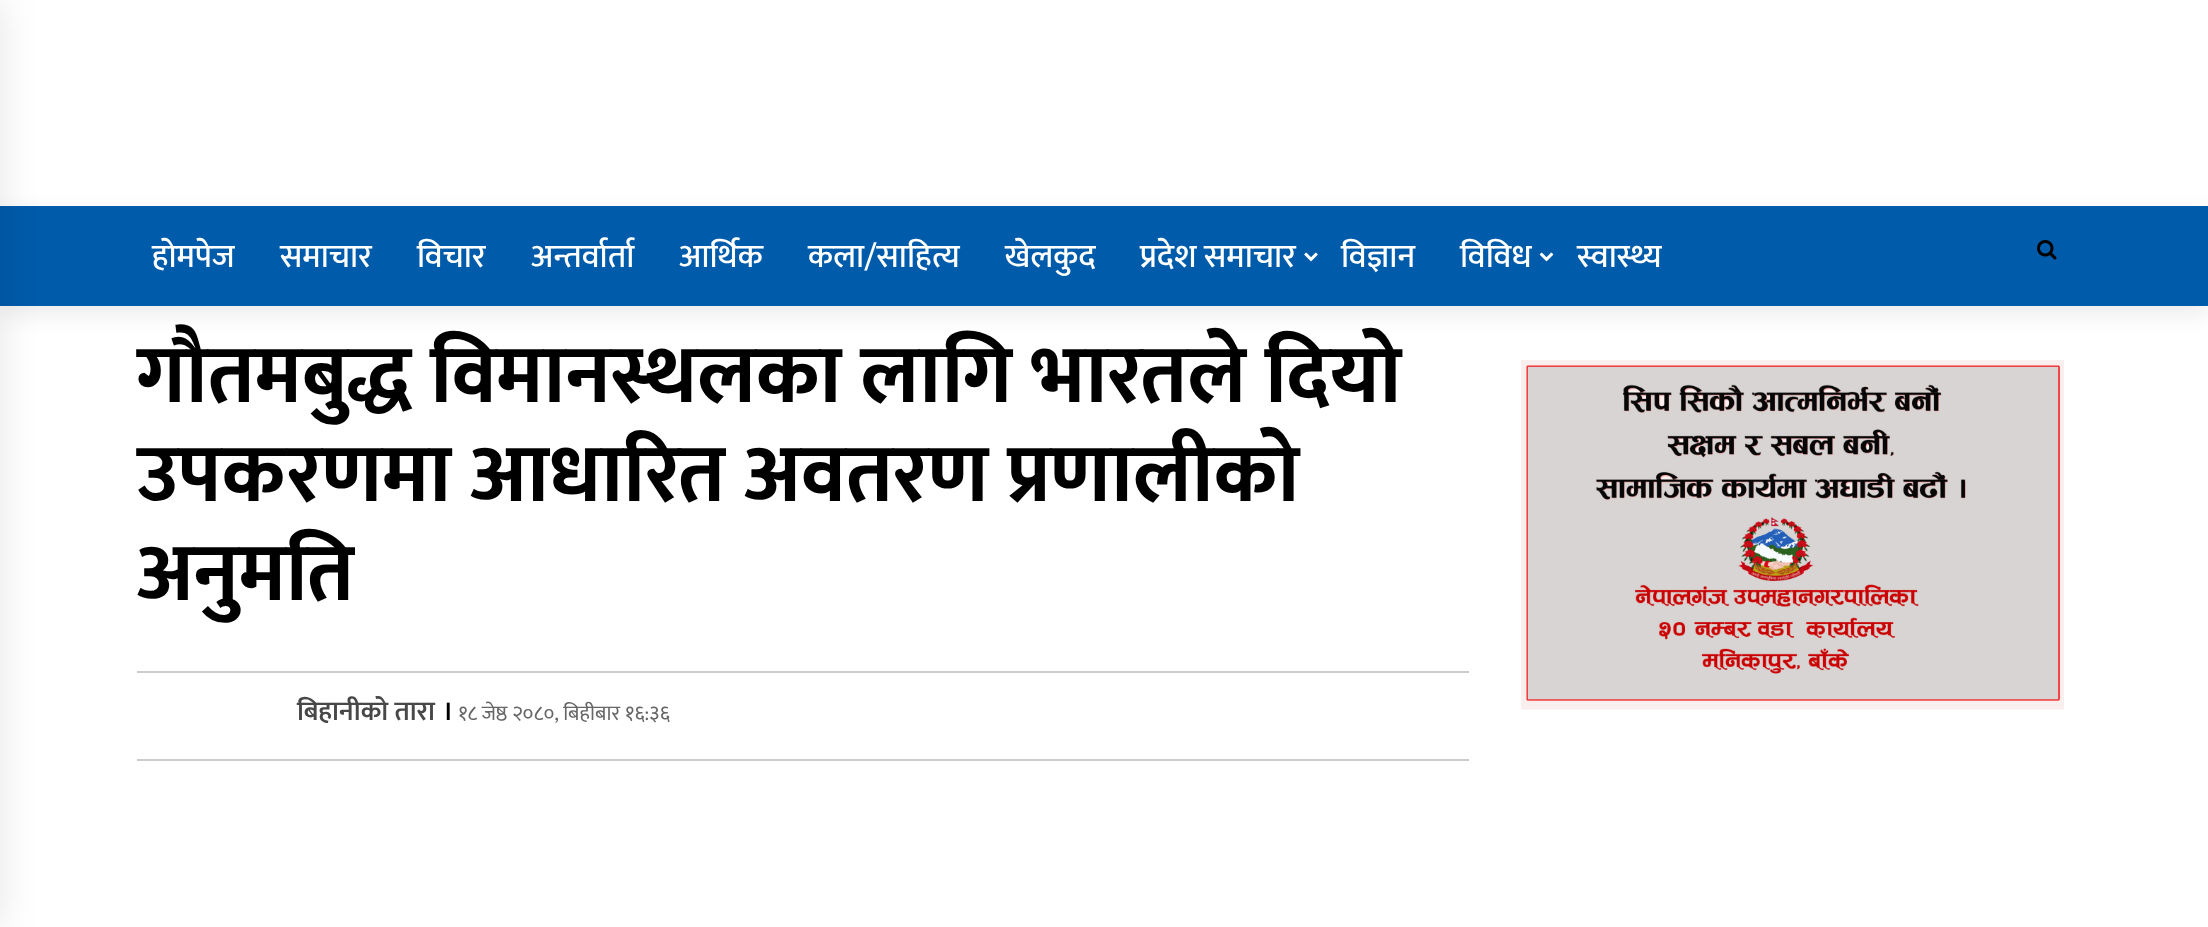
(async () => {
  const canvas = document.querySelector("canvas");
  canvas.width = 2208;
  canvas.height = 927;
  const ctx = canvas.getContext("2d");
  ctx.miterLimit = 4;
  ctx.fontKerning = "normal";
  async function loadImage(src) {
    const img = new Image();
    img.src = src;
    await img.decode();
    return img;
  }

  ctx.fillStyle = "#ffffff";
  ctx.fillRect(0, 0, 2208, 927);
  ctx.fillStyle = "rgba(0, 0, 0, 0.08)";
  ctx.filter = "blur(11px)";
  ctx.beginPath();
  ctx.rect(0, 213, 2208, 101);
  ctx.fill();
  ctx.filter = "none";
  ctx.fillStyle = "#005baa";
  ctx.fillRect(0, 206, 2208, 100);
  ctx.fillStyle = "rgba(0, 0, 0, 0.1)";
  ctx.filter = "blur(19px)";
  ctx.beginPath();
  ctx.rect(-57, 0, 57, 927);
  ctx.fill();
  ctx.filter = "none";
  ctx.drawImage(await loadImage("img/1.png"), 1304, 252, 14, 10);
  ctx.drawImage(await loadImage("img/2.png"), 1539, 252, 15, 10);
  ctx.drawImage(await loadImage("img/3.png"), 2037, 240, 20, 20);
  ctx.fillStyle = "#cccccc";
  ctx.fillRect(137, 671, 1332, 2);
  ctx.fillRect(137, 759, 1332, 2);
  ctx.drawImage(await loadImage("img/4.png"), 1521, 360, 543, 350);
  ctx.font = "500 33px Mukta";
  ctx.fillStyle = "#ffffff";
  for (const [text, x, y] of [
    ["होमपेज", 152, 267],
    ["समाचार", 280, 267],
    ["विचार", 417, 267],
    ["अन्तर्वार्ता", 531, 267],
    ["आर्थिक", 679, 267],
    ["कला/साहित्य", 808, 267],
    ["खेलकुद", 1005, 267],
    ["प्रदेश समाचार", 1140, 267],
    ["विज्ञान", 1341, 267],
    ["विविध", 1460, 267],
    ["स्वास्थ्य", 1577, 267],
  ]) {
    ctx.fillText(text, x, y);
  }
  ctx.font = "bold 82.5px Mukta";
  ctx.fillStyle = "#000000";
  for (const [text, x, y] of [
    ["गौतमबुद्ध विमानस्थलका लागि भारतले दियो", 137, 402],
    ["उपकरणमा आधारित अवतरण प्रणालीको", 137, 501],
    ["अनुमति", 137, 600],
  ]) {
    ctx.fillText(text, x, y);
  }
  ctx.font = "600 27px Mukta";
  ctx.fillStyle = "#484848";
  ctx.fillText("बिहानीको तारा", 297, 720);
  ctx.fillStyle = "#000000";
  ctx.fillText("।", 443, 720);
  ctx.font = "21px Mukta";
  ctx.fillStyle = "#666666";
  ctx.fillText("१८ जेष्ठ २०८०, बिहीबार १६:३६", 458, 720);
})();
